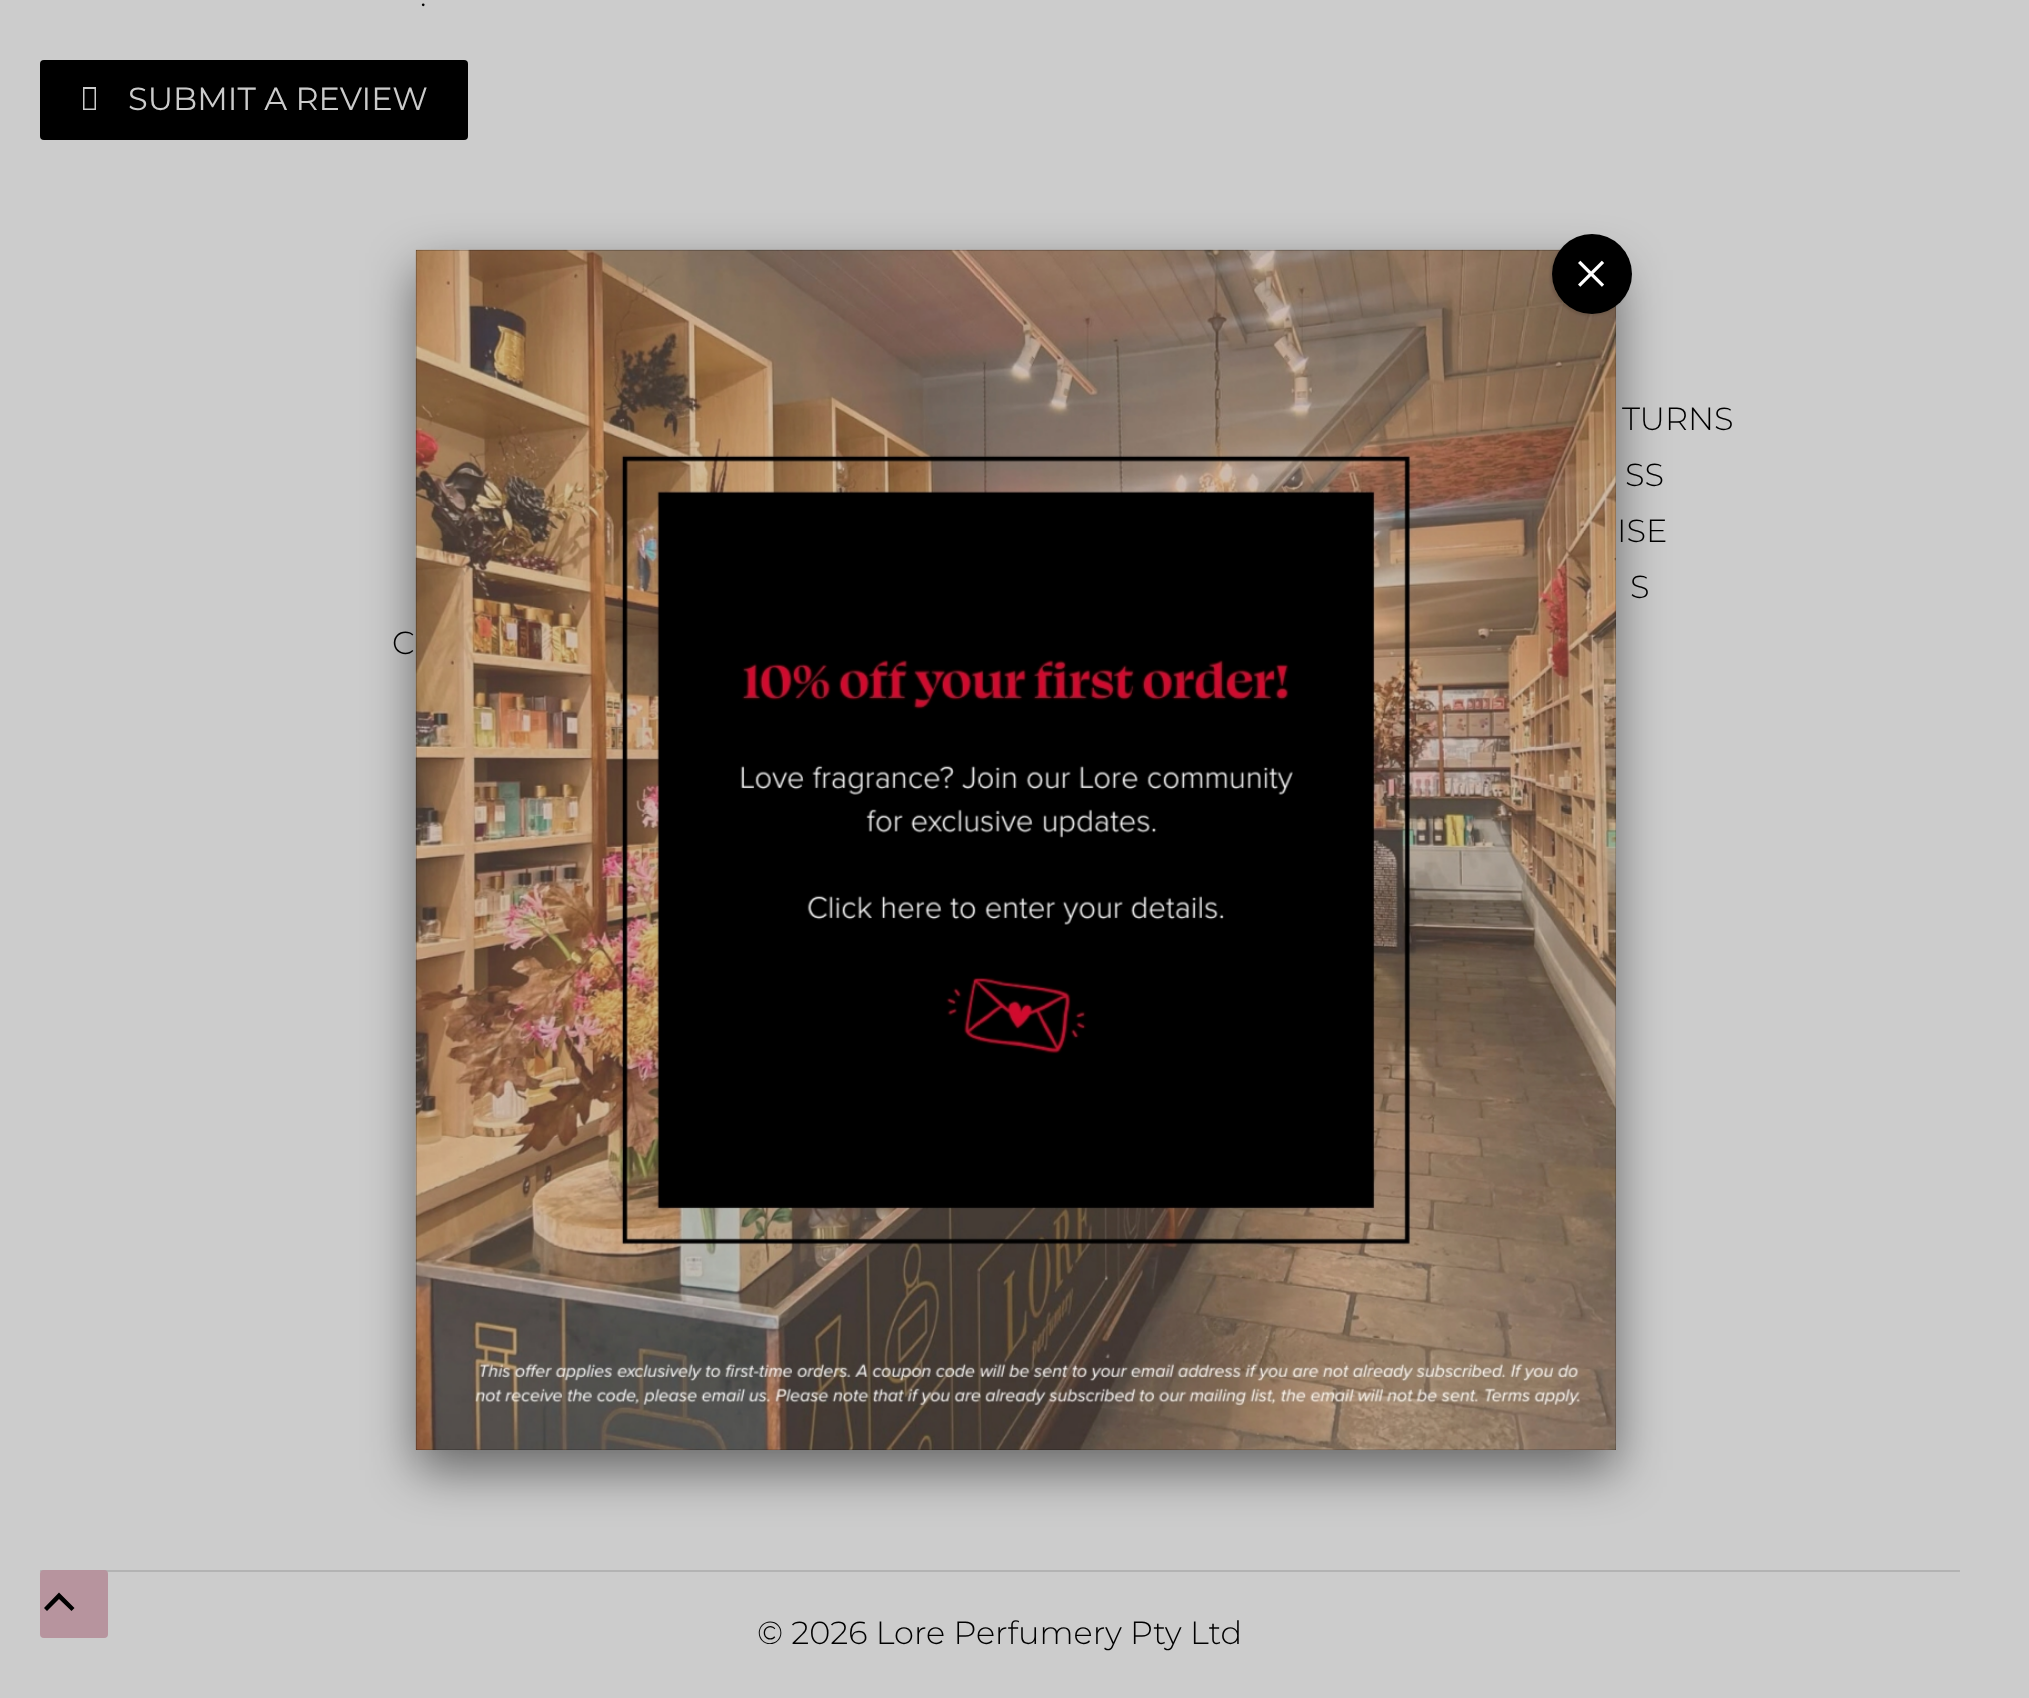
(async () => {
  const canvas = document.querySelector("canvas");
  canvas.width = 2029;
  canvas.height = 1698;
  const ctx = canvas.getContext("2d");
  ctx.miterLimit = 4;
  ctx.fontKerning = "normal";
  async function loadImage(src) {
    const img = new Image();
    img.src = src;
    await img.decode();
    return img;
  }
  let path;

  ctx.fillStyle = "#cccccc";
  ctx.fillRect(0, 0, 2029, 1698);
  ctx.fillStyle = "#000000";
  ctx.beginPath();
  ctx.roundRect(40, 60, 428, 80, 4);
  ctx.fill();
  ctx.fillStyle = "#cbcbcb";
  path = new Path2D("M83 110V87H96V110ZM84.5 108.5H94.5V89H84.5Z");
  ctx.fill(path);
  ctx.fillStyle = "#b3b3b3";
  ctx.fillRect(40, 1570, 1920, 2);
  ctx.fillStyle = "rgba(2, 2, 2, 0.5)";
  ctx.filter = "blur(25px)";
  ctx.beginPath();
  ctx.rect(416, 270, 1200, 1200);
  ctx.fill();
  ctx.filter = "none";
  ctx.fillStyle = "#000000";
  ctx.fillRect(416, 250, 1200, 1200);
  ctx.drawImage(await loadImage("img/1.png"), 415, 249, 1201, 1201);
  ctx.fillStyle = "rgba(2, 2, 2, 0.1)";
  ctx.filter = "blur(1px)";
  ctx.beginPath();
  ctx.roundRect(1550, 236, 80, 80, 40);
  ctx.fill();
  ctx.filter = "none";
  ctx.fillStyle = "#000000";
  ctx.beginPath();
  ctx.arc(1592, 274, 40, 0, Math.PI * 2);
  ctx.fill();
  ctx.fillStyle = "#b7949e";
  ctx.beginPath();
  ctx.roundRect(40, 1570, 68, 68, 4);
  ctx.fill();
  ctx.fillStyle = "#000000";
  path = new Path2D("M74.5 1608L59 1592.5L44 1608L47 1611L59 1599L71.5 1611Z");
  ctx.fill(path);
  ctx.font = "300 32px Montserrat";
  ctx.fillText(".", 420, 6);
  ctx.font = "32px Montserrat";
  ctx.fillStyle = "#cbcbcb";
  ctx.fillText("SUBMIT A REVIEW", 128, 110);
  ctx.font = "300 32px Montserrat";
  ctx.fillStyle = "#000000";
  for (const [text, x, y] of [
    ["TURNS", 1622, 430],
    ["SS", 1625, 486],
    ["ISE", 1617, 542],
    ["S", 1630, 598],
    ["C", 392, 654],
    ["© 2026 Lore Perfumery Pty Ltd", 757, 1644],
  ]) {
    ctx.fillText(text, x, y);
  }
  ctx.font = "64px Liberation Serif";
  ctx.fillStyle = "#ffffff";
  ctx.fillText("×", 1573, 295);
})();
